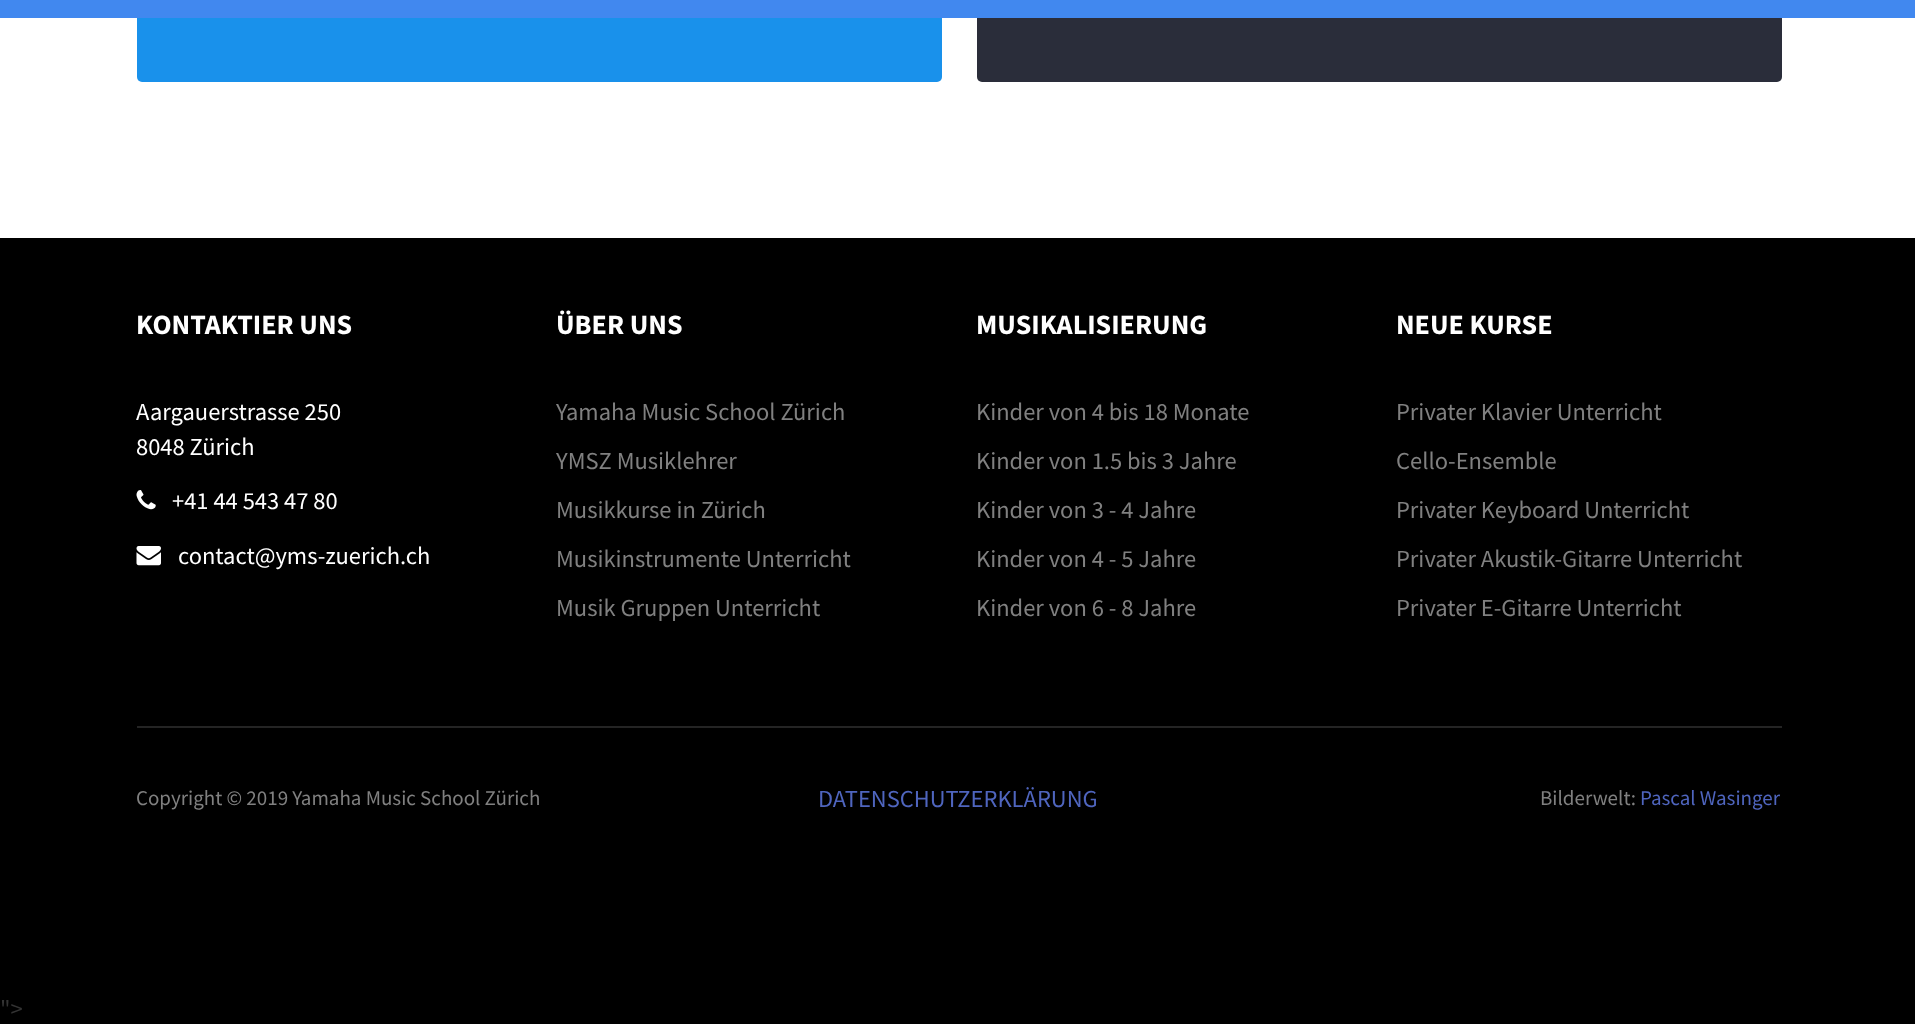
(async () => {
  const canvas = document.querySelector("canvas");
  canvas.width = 1915;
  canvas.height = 1024;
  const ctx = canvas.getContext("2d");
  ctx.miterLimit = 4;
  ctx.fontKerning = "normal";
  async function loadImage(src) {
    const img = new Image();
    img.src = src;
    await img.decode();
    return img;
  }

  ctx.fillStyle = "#000000";
  ctx.fillRect(0, 0, 1915, 1024);
  ctx.fillStyle = "#ffffff";
  ctx.fillRect(0, 18, 1915, 220);
  ctx.fillStyle = "#1991eb";
  ctx.beginPath();
  ctx.roundRect(137, -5, 805, 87, 5);
  ctx.fill();
  ctx.fillStyle = "#2a2d3a";
  ctx.beginPath();
  ctx.roundRect(977, -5, 805, 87, 5);
  ctx.fill();
  ctx.fillStyle = "#4188ef";
  ctx.fillRect(0, 0, 1915, 18);
  ctx.drawImage(await loadImage("img/1.png"), 136, 490, 20, 20);
  ctx.drawImage(await loadImage("img/2.png"), 136, 546, 25, 20);
  ctx.fillStyle = "#242424";
  ctx.fillRect(137, 726, 1645, 2);
  ctx.font = "bold 28px Source Sans Pro";
  ctx.fillStyle = "#ffffff";
  ctx.fillText("KONTAKTIER UNS", 136, 334);
  ctx.font = "24.5px Source Sans Pro";
  for (const [text, x, y] of [
    ["Aargauerstrasse 250", 136, 420],
    ["8048 Zürich", 136, 455],
    ["+41 44 543 47 80", 172, 509],
    ["contact@yms-zuerich.ch", 178, 564],
  ]) {
    ctx.fillText(text, x, y);
  }
  ctx.font = "bold 28px Source Sans Pro";
  ctx.fillText("ÜBER UNS", 556, 334);
  ctx.font = "24.5px Source Sans Pro";
  ctx.fillStyle = "#808080";
  for (const [text, x, y] of [
    ["Yamaha Music School Zürich", 556, 420],
    ["YMSZ Musiklehrer", 556, 469],
    ["Musikkurse in Zürich", 556, 518],
    ["Musikinstrumente Unterricht", 556, 567],
    ["Musik Gruppen Unterricht", 556, 616],
  ]) {
    ctx.fillText(text, x, y);
  }
  ctx.font = "bold 28px Source Sans Pro";
  ctx.fillStyle = "#ffffff";
  ctx.fillText("MUSIKALISIERUNG", 976, 334);
  ctx.font = "24.5px Source Sans Pro";
  ctx.fillStyle = "#808080";
  for (const [text, x, y] of [
    ["Kinder von 4 bis 18 Monate", 976, 420],
    ["Kinder von 1.5 bis 3 Jahre", 976, 469],
    ["Kinder von 3 - 4 Jahre", 976, 518],
    ["Kinder von 4 - 5 Jahre", 976, 567],
    ["Kinder von 6 - 8 Jahre", 976, 616],
  ]) {
    ctx.fillText(text, x, y);
  }
  ctx.font = "bold 28px Source Sans Pro";
  ctx.fillStyle = "#ffffff";
  ctx.fillText("NEUE KURSE", 1396, 334);
  ctx.font = "24.5px Source Sans Pro";
  ctx.fillStyle = "#808080";
  for (const [text, x, y] of [
    ["Privater Klavier Unterricht", 1396, 420],
    ["Cello-Ensemble", 1396, 469],
    ["Privater Keyboard Unterricht", 1396, 518],
    ["Privater Akustik-Gitarre Unterricht", 1396, 567],
    ["Privater E-Gitarre Unterricht", 1396, 616],
  ]) {
    ctx.fillText(text, x, y);
  }
  ctx.font = "21px Source Sans Pro";
  ctx.fillText("Copyright © 2019 Yamaha Music School Zürich", 136, 805);
  ctx.font = "24.5px Source Sans Pro";
  ctx.fillStyle = "#4f65be";
  ctx.fillText("DATENSCHUTZERKLÄRUNG", 818, 807);
  ctx.font = "21px Source Sans Pro";
  ctx.fillStyle = "#808080";
  ctx.fillText("Bilderwelt:", 1540, 805);
  ctx.fillStyle = "#4f65be";
  ctx.fillText("Pascal Wasinger", 1640, 805);
  ctx.font = "24.5px Source Sans Pro";
  ctx.fillStyle = "#333333";
  ctx.fillText("\">", 0, 1017);
})();
